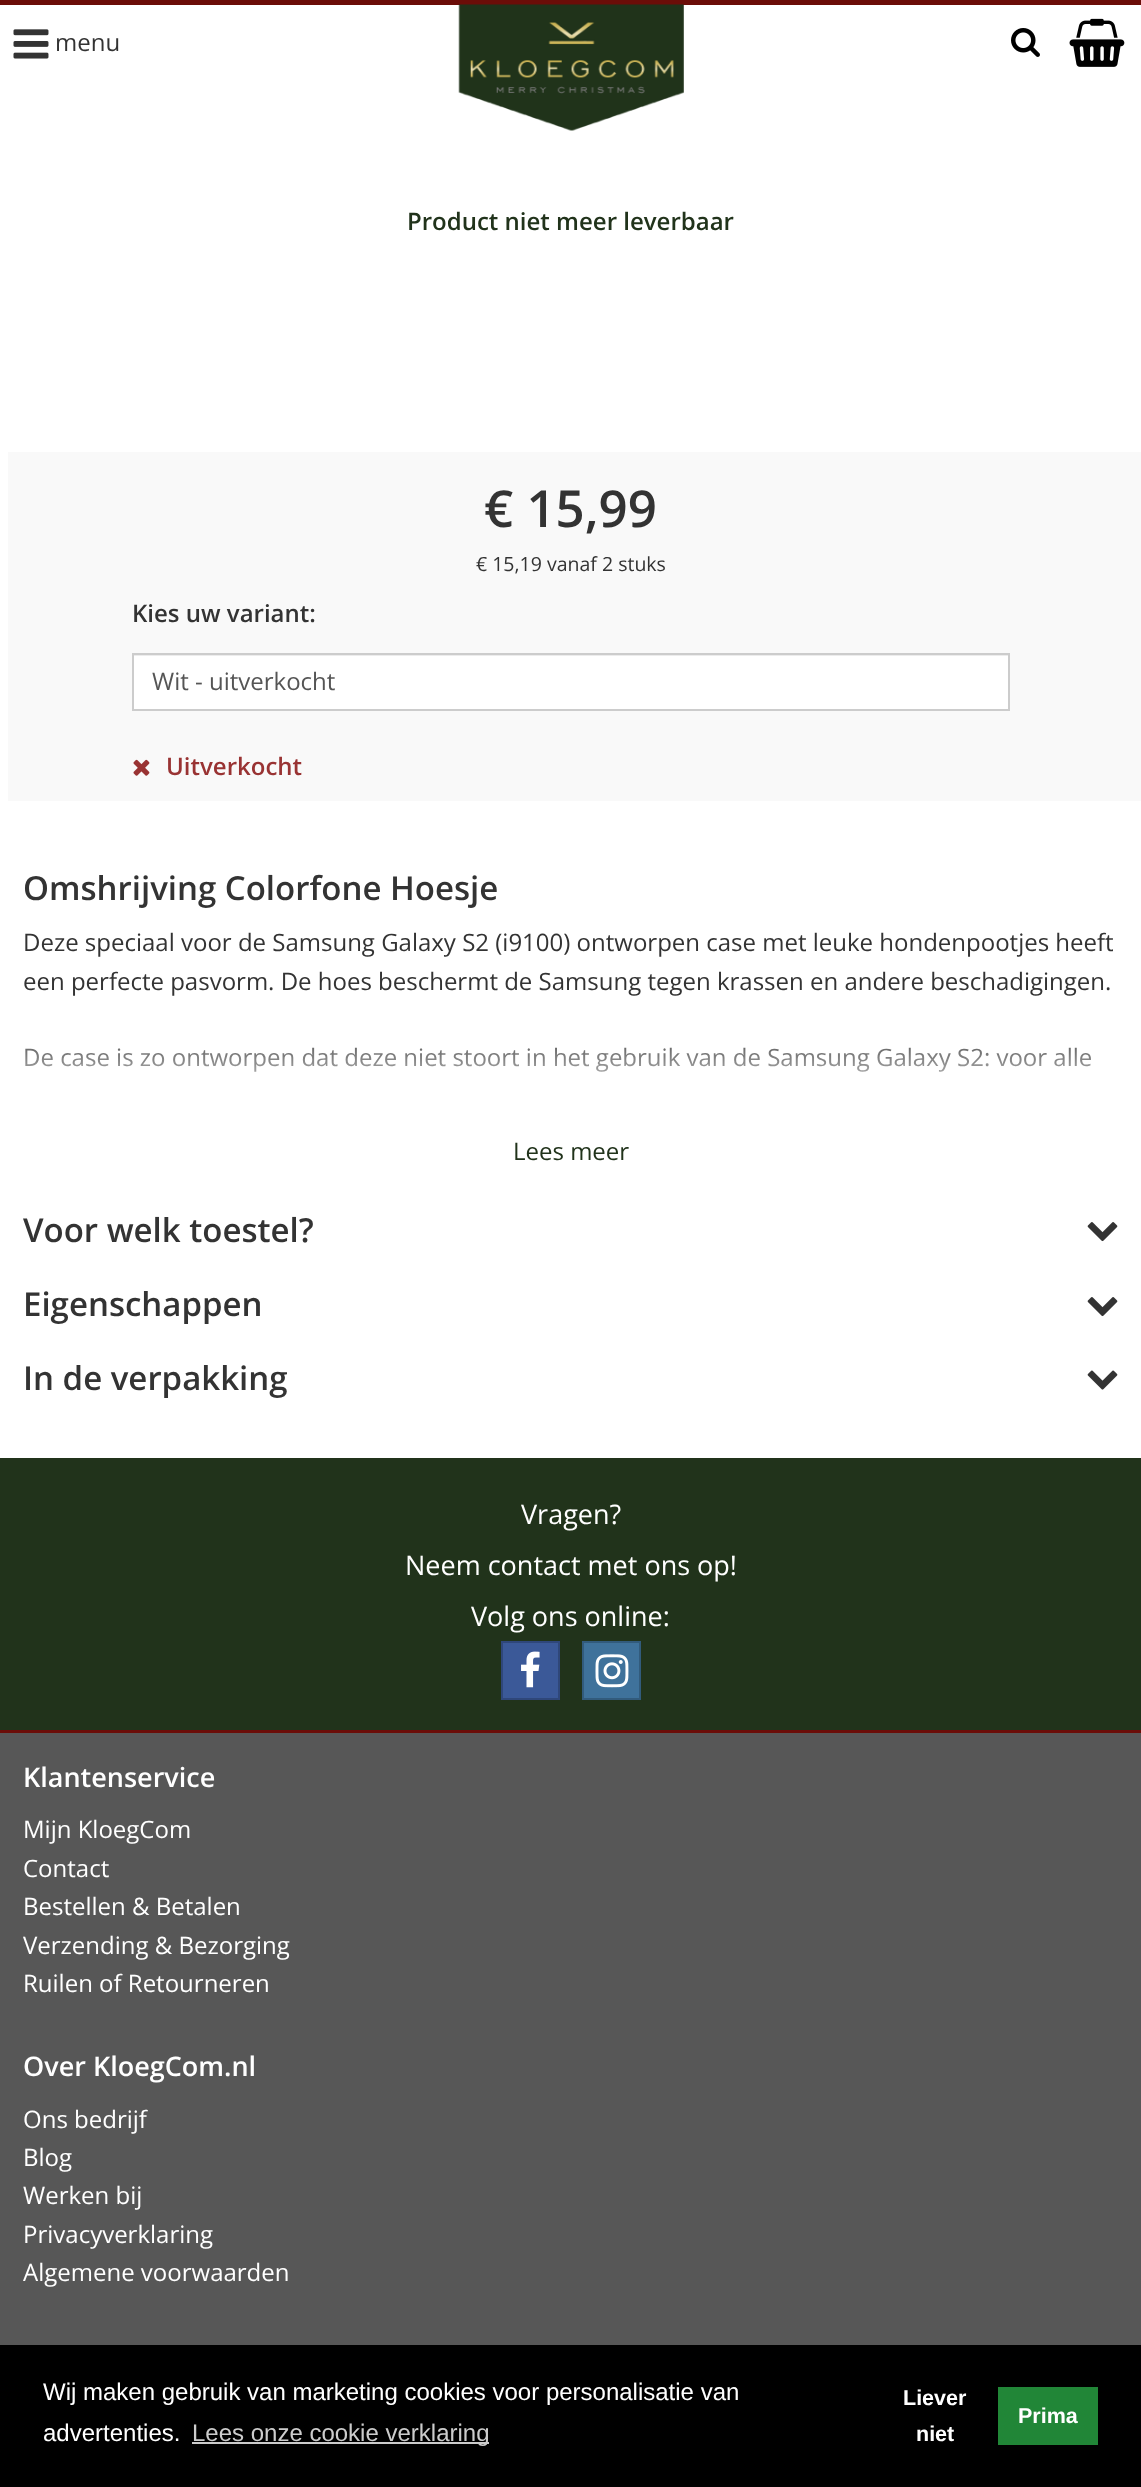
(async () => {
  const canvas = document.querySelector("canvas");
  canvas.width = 1141;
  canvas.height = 2487;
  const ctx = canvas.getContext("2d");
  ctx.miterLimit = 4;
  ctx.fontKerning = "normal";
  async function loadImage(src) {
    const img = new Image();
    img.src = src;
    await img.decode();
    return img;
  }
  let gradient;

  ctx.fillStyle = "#ffffff";
  ctx.fillRect(0, 0, 1141, 2487);
  ctx.fillStyle = "#6b0d08";
  ctx.fillRect(0, 0, 1141, 5);
  ctx.drawImage(await loadImage("img/1.png"), 13, 29, 36, 30);
  ctx.drawImage(await loadImage("img/2.png"), 458, 4, 226, 127);
  ctx.drawImage(await loadImage("img/3.png"), 1011, 28, 29, 29);
  ctx.drawImage(await loadImage("img/4.png"), 1069, 18, 56, 49);
  for (const [x, y, w, h, color] of [
    [8, 452, 1133, 349, "#f9f9f9"],
    [134, 656, 874, 53, "#ffffff"],
    [134, 655, 874, 1, "#ececec"],
  ]) {
    ctx.fillStyle = color;
    ctx.fillRect(x, y, w, h);
  }
  ctx.strokeStyle = "#cccccc";
  ctx.lineWidth = 2;
  ctx.strokeRect(133, 654, 876, 56);
  ctx.drawImage(await loadImage("img/5.png"), 133, 759, 17, 17);
  ctx.drawImage(await loadImage("img/6.png"), 1087, 1222, 31, 20);
  ctx.drawImage(await loadImage("img/6.png"), 1087, 1297, 31, 20);
  ctx.drawImage(await loadImage("img/7.png"), 1087, 1370, 31, 20);
  for (const [x, y, w, h, color] of [
    [0, 1733, 1141, 612, "#575757"],
    [0, 1458, 1141, 272, "#21331b"],
    [0, 1730, 1141, 3, "#6b0d08"],
  ]) {
    ctx.fillStyle = color;
    ctx.fillRect(x, y, w, h);
  }
  ctx.fillStyle = "#3b5998";
  ctx.beginPath();
  ctx.rect(502, 1642, 57, 57);
  ctx.fill();
  ctx.strokeStyle = "#2f477a";
  ctx.stroke();
  ctx.drawImage(await loadImage("img/8.png"), 521, 1651, 19, 37);
  ctx.fillStyle = "#3f729b";
  ctx.beginPath();
  ctx.rect(583, 1642, 57, 57);
  ctx.fill();
  ctx.strokeStyle = "#325b7c";
  ctx.stroke();
  ctx.drawImage(await loadImage("img/9.png"), 595, 1654, 34, 34);
  for (const [x, y, w, h, color] of [
    [0, 2345, 1141, 142, "#000000"],
    [192, 2442, 297, 2, "#cccccc"],
    [998, 2387, 100, 58, "#218637"],
  ]) {
    ctx.fillStyle = color;
    ctx.fillRect(x, y, w, h);
  }
  ctx.font = "24px Open Sans";
  ctx.fillStyle = "#333333";
  ctx.fillText("menu", 55, 51);
  ctx.font = "600 24px Open Sans";
  ctx.fillStyle = "#21331b";
  ctx.fillText("Product niet meer leverbaar", 407, 230);
  ctx.font = "600 51px Open Sans";
  ctx.fillStyle = "#333333";
  ctx.fillText("€ 15,99", 484, 527);
  ctx.font = "19.5px Open Sans";
  ctx.fillText("€ 15,19 vanaf 2 stuks", 476, 571);
  ctx.font = "600 24px Open Sans";
  ctx.fillText("Kies uw variant:", 132, 622);
  ctx.font = "24px Open Sans";
  ctx.fillStyle = "#555555";
  ctx.fillText("Wit - uitverkocht", 152, 690);
  ctx.font = "600 24px Open Sans";
  ctx.fillStyle = "#993333";
  ctx.fillText("Uitverkocht", 166, 775);
  ctx.font = "600 33px Open Sans";
  ctx.fillStyle = "#333333";
  ctx.fillText("Omshrijving Colorfone Hoesje", 23, 900);
  ctx.font = "24px Open Sans";
  for (const [text, x, y] of [
    ["Deze speciaal voor de Samsung Galaxy S2 (i9100) ontworpen case met leuke hondenpootjes heeft", 23, 951],
    ["een perfecte pasvorm. De hoes beschermt de Samsung tegen krassen en andere beschadigingen.", 23, 990],
    ["De case is zo ontworpen dat deze niet stoort in het gebruik van de Samsung Galaxy S2: voor alle", 23, 1066],
  ]) {
    ctx.fillText(text, x, y);
  }
  gradient = ctx.createLinearGradient(571, 1023, 571, 1173);
  gradient.addColorStop(0, "rgba(255, 255, 255, 0)");
  gradient.addColorStop(0.6, "#ffffff");
  ctx.fillStyle = gradient;
  ctx.fillRect(24, 1047, 1067, 25);
  ctx.fillStyle = "#21331b";
  ctx.fillText("Lees meer", 513, 1160);
  ctx.font = "600 33px Open Sans";
  ctx.fillStyle = "#333333";
  for (const [text, x, y] of [
    ["Voor welk toestel?", 23, 1242],
    ["Eigenschappen", 23, 1316],
    ["In de verpakking", 23, 1390],
  ]) {
    ctx.fillText(text, x, y);
  }
  ctx.font = "27px Open Sans";
  ctx.fillStyle = "#ffffff";
  for (const [text, x, y] of [
    ["Vragen?", 521, 1524],
    ["Neem contact met ons op!", 405, 1575],
    ["Volg ons online:", 471, 1626],
  ]) {
    ctx.fillText(text, x, y);
  }
  ctx.font = "600 27px Open Sans";
  ctx.fillText("Klantenservice", 23, 1787);
  ctx.font = "24px Open Sans";
  for (const [text, x, y] of [
    ["Mijn KloegCom", 23, 1838],
    ["Contact", 23, 1877],
    ["Bestellen & Betalen", 23, 1915],
    ["Verzending & Bezorging", 23, 1954],
    ["Ruilen of Retourneren", 23, 1992],
  ]) {
    ctx.fillText(text, x, y);
  }
  ctx.font = "600 27px Open Sans";
  ctx.fillText("Over KloegCom.nl", 23, 2076);
  ctx.font = "24px Open Sans";
  for (const [text, x, y] of [
    ["Ons bedrijf", 23, 2128],
    ["Blog", 23, 2166],
    ["Werken bij", 23, 2204],
    ["Privacyverklaring", 23, 2243],
    ["Algemene voorwaarden", 23, 2281],
  ]) {
    ctx.fillText(text, x, y);
  }
  ctx.font = "24px Liberation Sans";
  ctx.fillText("Wij maken gebruik van marketing cookies voor personalisatie van", 43, 2400);
  ctx.fillText("advertenties.", 43, 2441);
  ctx.fillStyle = "#cccccc";
  ctx.fillText("Lees onze cookie verklaring", 192, 2441);
  ctx.font = "bold 21.5px Liberation Sans";
  ctx.fillStyle = "#ffffff";
  for (const [text, x, y] of [
    ["Liever", 903, 2405],
    ["niet", 916, 2441],
    ["Prima", 1018, 2423],
  ]) {
    ctx.fillText(text, x, y);
  }
})();
